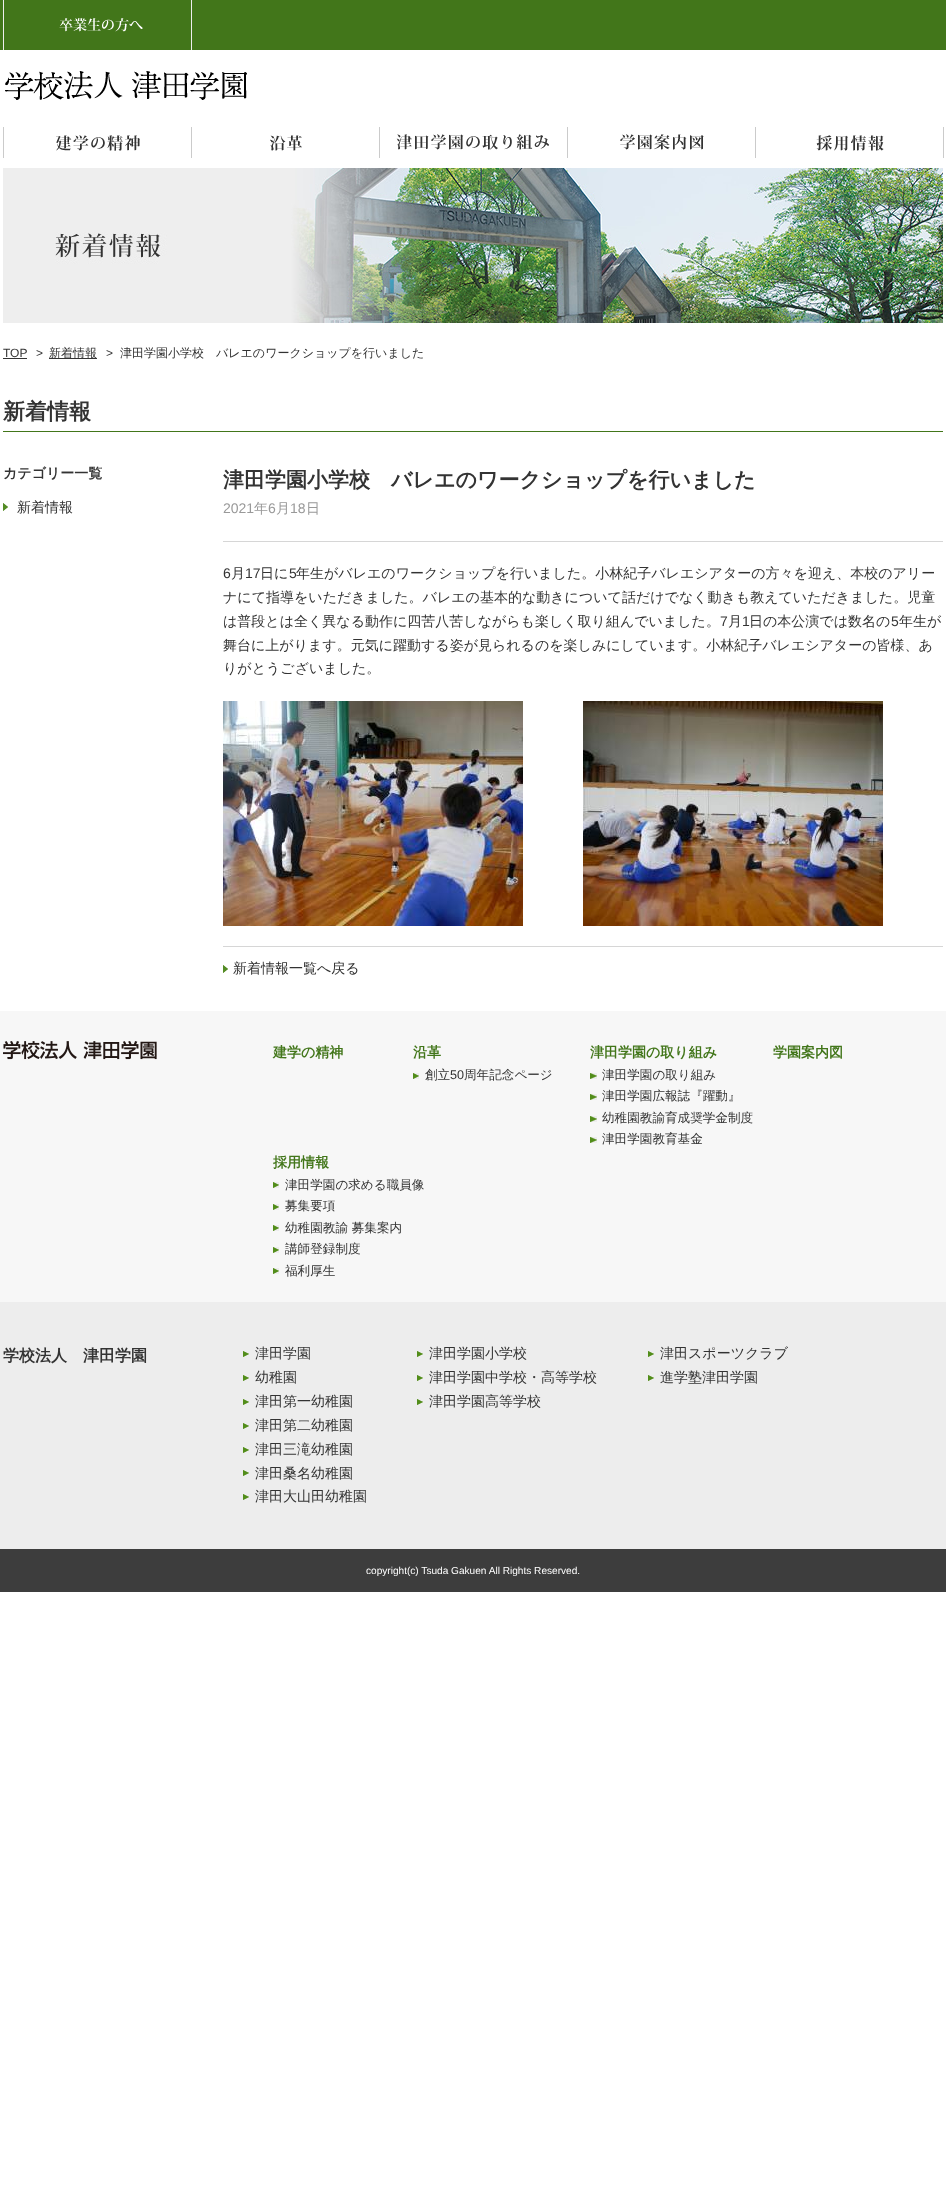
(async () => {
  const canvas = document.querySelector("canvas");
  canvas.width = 946;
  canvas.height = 2211;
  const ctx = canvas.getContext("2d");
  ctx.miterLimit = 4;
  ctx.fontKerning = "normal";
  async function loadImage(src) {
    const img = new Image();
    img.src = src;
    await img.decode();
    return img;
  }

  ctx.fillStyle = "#ffffff";
  ctx.fillRect(0, 0, 946, 2211);
  ctx.fillStyle = "#42761a";
  ctx.fillRect(0, 0, 946, 50);
  ctx.drawImage(await loadImage("img/1.png"), 3, 0, 189, 50);
  ctx.drawImage(await loadImage("img/2.png"), 5, 71, 242, 29);
  ctx.fillStyle = "#cbcbcb";
  ctx.fillRect(3, 127, 1, 31);
  ctx.fillRect(191, 127, 1, 31);
  ctx.drawImage(await loadImage("img/3.png"), 56, 135, 84, 16);
  ctx.fillRect(379, 127, 1, 31);
  ctx.drawImage(await loadImage("img/4.png"), 270, 135, 32, 16);
  ctx.fillRect(567, 127, 1, 31);
  ctx.drawImage(await loadImage("img/5.png"), 396, 134, 153, 16);
  ctx.fillRect(755, 127, 1, 31);
  ctx.drawImage(await loadImage("img/6.png"), 620, 134, 84, 16);
  ctx.fillRect(943, 127, 1, 31);
  ctx.drawImage(await loadImage("img/7.png"), 816, 135, 68, 16);
  ctx.drawImage(await loadImage("img/8.png"), 3, 168, 940, 155);
  for (const [x, y, w, h, color] of [
    [3, 358, 24, 1, "#333333"],
    [49, 358, 48, 1, "#333333"],
    [3, 431, 940, 1, "#42761a"],
  ]) {
    ctx.fillStyle = color;
    ctx.fillRect(x, y, w, h);
  }
  ctx.drawImage(await loadImage("img/9.png"), 3, 503, 5, 8);
  ctx.fillStyle = "#d6d6d6";
  ctx.fillRect(223, 541, 720, 1);
  ctx.fillRect(223, 946, 720, 1);
  ctx.drawImage(await loadImage("img/10.png"), 223, 701, 300, 225);
  ctx.drawImage(await loadImage("img/11.png"), 583, 701, 300, 225);
  ctx.drawImage(await loadImage("img/9.png"), 223, 965, 5, 8);
  ctx.fillStyle = "#f7f7f7";
  ctx.fillRect(0, 1011, 946, 291);
  ctx.drawImage(await loadImage("img/12.png"), 3, 1041, 154, 19);
  ctx.drawImage(await loadImage("img/13.png"), 413, 1073, 6, 6);
  ctx.drawImage(await loadImage("img/14.png"), 590, 1073, 7, 6);
  ctx.drawImage(await loadImage("img/14.png"), 590, 1094, 7, 6);
  ctx.drawImage(await loadImage("img/14.png"), 590, 1116, 7, 6);
  ctx.drawImage(await loadImage("img/14.png"), 590, 1137, 7, 6);
  ctx.drawImage(await loadImage("img/13.png"), 273, 1182, 6, 6);
  ctx.drawImage(await loadImage("img/13.png"), 273, 1204, 6, 6);
  ctx.drawImage(await loadImage("img/13.png"), 273, 1225, 6, 6);
  ctx.drawImage(await loadImage("img/13.png"), 273, 1247, 6, 6);
  ctx.drawImage(await loadImage("img/13.png"), 273, 1268, 6, 6);
  ctx.fillStyle = "#ededed";
  ctx.fillRect(0, 1302, 946, 247);
  ctx.drawImage(await loadImage("img/13.png"), 243, 1351, 6, 6);
  ctx.drawImage(await loadImage("img/13.png"), 243, 1375, 6, 6);
  ctx.drawImage(await loadImage("img/13.png"), 243, 1399, 6, 6);
  ctx.drawImage(await loadImage("img/13.png"), 243, 1423, 6, 6);
  ctx.drawImage(await loadImage("img/13.png"), 243, 1447, 6, 6);
  ctx.drawImage(await loadImage("img/13.png"), 243, 1470, 6, 6);
  ctx.drawImage(await loadImage("img/13.png"), 243, 1494, 6, 6);
  ctx.drawImage(await loadImage("img/13.png"), 417, 1351, 6, 6);
  ctx.drawImage(await loadImage("img/13.png"), 417, 1375, 6, 6);
  ctx.drawImage(await loadImage("img/13.png"), 417, 1399, 6, 6);
  ctx.drawImage(await loadImage("img/13.png"), 648, 1351, 6, 6);
  ctx.drawImage(await loadImage("img/13.png"), 648, 1375, 6, 6);
  ctx.fillStyle = "#3d3d3d";
  ctx.fillRect(0, 1549, 946, 43);
  ctx.font = "12px Liberation Sans";
  ctx.fillStyle = "#333333";
  ctx.fillText("TOP", 3, 357);
  ctx.fillText(">", 36, 357);
  ctx.font = "500 12px WenQuanYi Zen Hei";
  ctx.fillText("新着情報", 49, 357);
  ctx.font = "12px Liberation Sans";
  ctx.fillText(">", 106, 357);
  ctx.font = "500 12px WenQuanYi Zen Hei";
  ctx.fillText("津田学園小学校　バレエのワークショップを行いました", 120, 357);
  ctx.font = "bold 22px WenQuanYi Zen Hei";
  ctx.fillText("新着情報", 3, 419);
  ctx.font = "bold 14px WenQuanYi Zen Hei";
  ctx.fillText("カテゴリー一覧", 3, 478);
  ctx.font = "500 14px WenQuanYi Zen Hei";
  ctx.fillText("新着情報", 17, 512);
  ctx.font = "bold 21px WenQuanYi Zen Hei";
  ctx.fillText("津田学園小学校　バレエのワークショップを行いました", 223, 487);
  ctx.font = "14px Liberation Sans";
  ctx.fillStyle = "#999999";
  ctx.fillText("2021", 223, 513);
  ctx.font = "500 14px WenQuanYi Zen Hei";
  ctx.fillText("年", 254, 513);
  ctx.font = "14px Liberation Sans";
  ctx.fillText("6", 268, 513);
  ctx.font = "500 14px WenQuanYi Zen Hei";
  ctx.fillText("月", 276, 513);
  ctx.font = "14px Liberation Sans";
  ctx.fillText("18", 290, 513);
  ctx.font = "500 14px WenQuanYi Zen Hei";
  ctx.fillText("日", 306, 513);
  ctx.font = "14px Liberation Sans";
  ctx.fillStyle = "#333333";
  ctx.fillText("6", 223, 578);
  ctx.font = "500 14px WenQuanYi Zen Hei";
  ctx.fillText("月", 231, 578);
  ctx.font = "14px Liberation Sans";
  ctx.fillText("17", 245, 578);
  ctx.font = "500 14px WenQuanYi Zen Hei";
  ctx.fillText("日に", 260, 578);
  ctx.font = "14px Liberation Sans";
  ctx.fillText("5", 289, 578);
  ctx.font = "500 14px WenQuanYi Zen Hei";
  for (const [text, x, y] of [
    ["年生がバレエのワークショップを行いました。小林紀子バレエシアターの方々を迎え、本校のアリー", 296, 578],
    ["ナにて指導をいただきました。バレエの基本的な動きについて話だけでなく動きも教えていただきました。児童", 223, 602],
    ["は普段とは全く異なる動作に四苦八苦しながらも楽しく取り組んでいました。", 223, 626],
  ]) {
    ctx.fillText(text, x, y);
  }
  ctx.font = "14px Liberation Sans";
  ctx.fillText("7", 720, 626);
  ctx.font = "500 14px WenQuanYi Zen Hei";
  ctx.fillText("月", 728, 626);
  ctx.font = "14px Liberation Sans";
  ctx.fillText("1", 742, 626);
  ctx.font = "500 14px WenQuanYi Zen Hei";
  ctx.fillText("日の本公演では数名の", 749, 626);
  ctx.font = "14px Liberation Sans";
  ctx.fillText("5", 891, 626);
  ctx.font = "500 14px WenQuanYi Zen Hei";
  for (const [text, x, y] of [
    ["年生が", 899, 626],
    ["舞台に上がります。元気に躍動する姿が見られるのを楽しみにしています。小林紀子バレエシアターの皆様、あ", 223, 650],
    ["りがとうございました。", 223, 673],
    ["新着情報一覧へ戻る", 233, 973],
  ]) {
    ctx.fillText(text, x, y);
  }
  ctx.font = "bold 14px WenQuanYi Zen Hei";
  ctx.fillStyle = "#42761a";
  ctx.fillText("建学の精神", 273, 1057);
  ctx.fillText("沿革", 413, 1057);
  ctx.font = "500 12.6px WenQuanYi Zen Hei";
  ctx.fillStyle = "#333333";
  ctx.fillText("創立", 425, 1079);
  ctx.font = "12.6px Liberation Sans";
  ctx.fillText("50", 450, 1079);
  ctx.font = "500 12.6px WenQuanYi Zen Hei";
  ctx.fillText("周年記念ページ", 464, 1079);
  ctx.font = "bold 14px WenQuanYi Zen Hei";
  ctx.fillStyle = "#42761a";
  ctx.fillText("津田学園の取り組み", 590, 1057);
  ctx.font = "500 12.6px WenQuanYi Zen Hei";
  ctx.fillStyle = "#333333";
  for (const [text, x, y] of [
    ["津田学園の取り組み", 602, 1079],
    ["津田学園広報誌『躍動』", 602, 1100],
    ["幼稚園教諭育成奨学金制度", 602, 1122],
    ["津田学園教育基金", 602, 1143],
  ]) {
    ctx.fillText(text, x, y);
  }
  ctx.font = "bold 14px WenQuanYi Zen Hei";
  ctx.fillStyle = "#42761a";
  ctx.fillText("学園案内図", 773, 1057);
  ctx.fillText("採用情報", 273, 1167);
  ctx.font = "500 12.6px WenQuanYi Zen Hei";
  ctx.fillStyle = "#333333";
  for (const [text, x, y] of [
    ["津田学園の求める職員像", 285, 1189],
    ["募集要項", 285, 1210],
    ["幼稚園教諭 募集案内", 285, 1232],
    ["講師登録制度", 285, 1253],
    ["福利厚生", 285, 1275],
  ]) {
    ctx.fillText(text, x, y);
  }
  ctx.font = "bold 16px WenQuanYi Zen Hei";
  ctx.fillText("学校法人　津田学園", 3, 1361);
  ctx.font = "500 14px WenQuanYi Zen Hei";
  for (const [text, x, y] of [
    ["津田学園", 255, 1358],
    ["幼稚園", 255, 1382],
    ["津田第一幼稚園", 255, 1406],
    ["津田第二幼稚園", 255, 1430],
    ["津田三滝幼稚園", 255, 1454],
    ["津田桑名幼稚園", 255, 1478],
    ["津田大山田幼稚園", 255, 1501],
    ["津田学園小学校", 429, 1358],
    ["津田学園中学校・高等学校", 429, 1382],
    ["津田学園高等学校", 429, 1406],
    ["津田スポーツクラブ", 660, 1358],
    ["進学塾津田学園", 660, 1382],
  ]) {
    ctx.fillText(text, x, y);
  }
  ctx.font = "10.1px Liberation Sans";
  ctx.fillStyle = "#ffffff";
  ctx.fillText("copyright(c) Tsuda Gakuen All Rights Reserved.", 366, 1574);
})();
